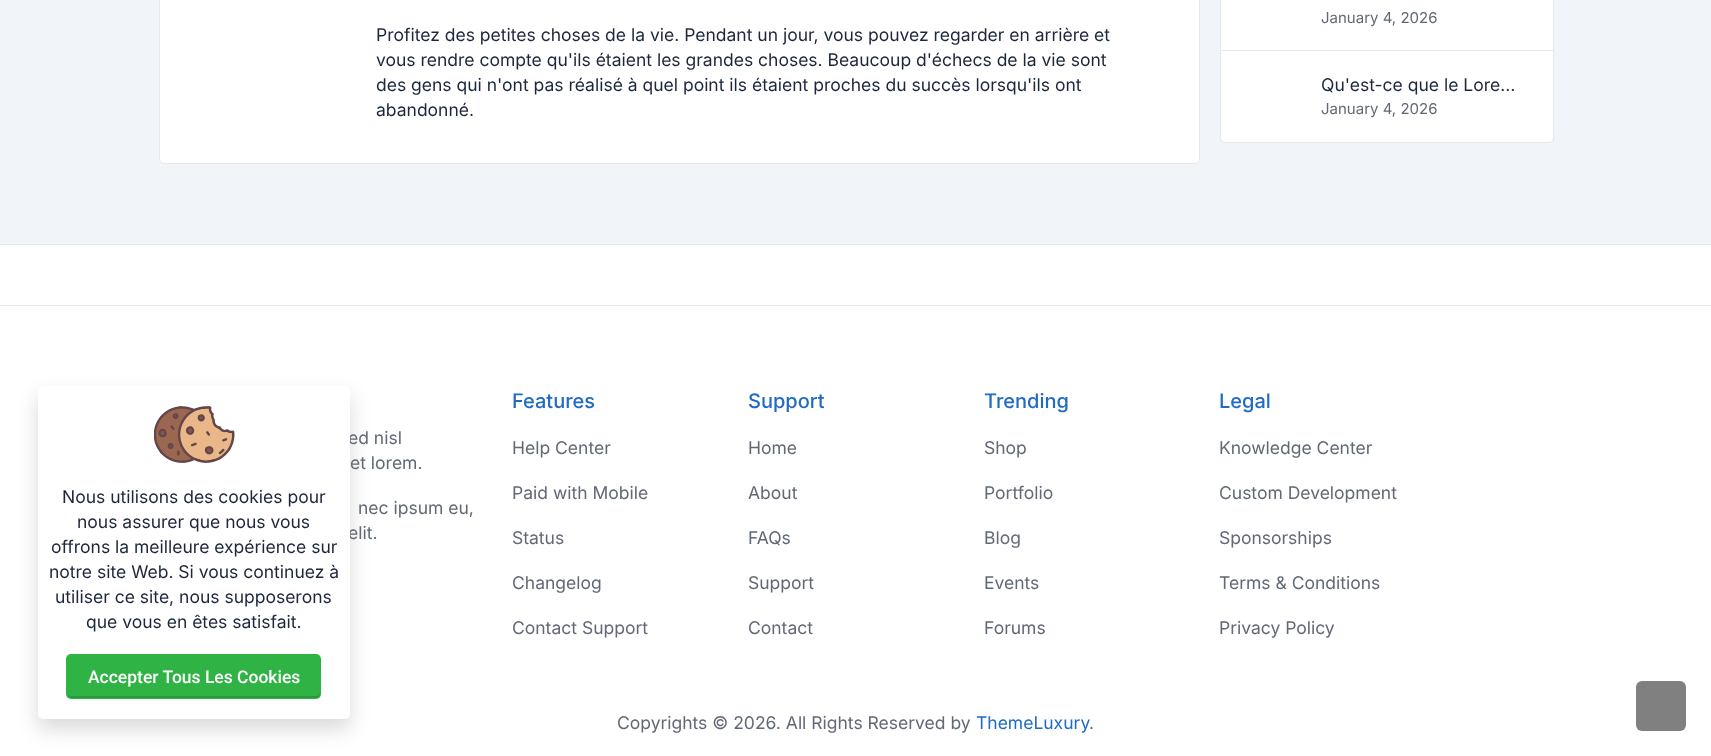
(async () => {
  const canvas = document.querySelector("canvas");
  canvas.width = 1711;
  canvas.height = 756;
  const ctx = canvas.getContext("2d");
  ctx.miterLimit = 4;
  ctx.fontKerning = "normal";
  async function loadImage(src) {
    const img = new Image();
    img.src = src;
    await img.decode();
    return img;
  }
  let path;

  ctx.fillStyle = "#f1f5f9";
  ctx.fillRect(0, 0, 1711, 756);
  ctx.fillStyle = "#ffffff";
  ctx.beginPath();
  ctx.roundRect(159.5, -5.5, 1040, 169, 4.5);
  ctx.fill();
  ctx.strokeStyle = "#e6e7e9";
  ctx.stroke();
  ctx.beginPath();
  ctx.roundRect(1220.5, -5.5, 333, 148, 4.5);
  ctx.fill();
  ctx.stroke();
  ctx.fillStyle = "#e6e7e9";
  ctx.fillRect(1221, 50, 332, 1);
  ctx.fillStyle = "#ffffff";
  ctx.fillRect(0, 245, 1711, 511);
  ctx.fillStyle = "rgba(0, 0, 0, 0.15)";
  ctx.filter = "blur(10px)";
  ctx.beginPath();
  ctx.roundRect(38, 396, 312, 333, 5);
  ctx.fill();
  ctx.filter = "none";
  ctx.fillStyle = "#e6e7e9";
  ctx.fillRect(0, 244, 1711, 1);
  ctx.fillRect(0, 305, 1711, 1);
  ctx.fillStyle = "#808080";
  ctx.beginPath();
  ctx.roundRect(1636, 681, 50, 50, 6);
  ctx.fill();
  ctx.font = "17.5px Inter";
  ctx.fillStyle = "#1d273b";
  for (const [text, x, y] of [
    ["Profitez des petites choses de la vie. Pendant un jour, vous pouvez regarder en arrière et", 376, 41],
    ["vous rendre compte qu'ils étaient les grandes choses. Beaucoup d'échecs de la vie sont", 376, 66],
    ["des gens qui n'ont pas réalisé à quel point ils étaient proches du succès lorsqu'ils ont", 376, 91],
    ["abandonné.", 376, 116],
  ]) {
    ctx.fillText(text, x, y);
  }
  ctx.font = "15px Inter";
  ctx.fillStyle = "#616876";
  ctx.fillText("January 4, 2026", 1321, 23);
  ctx.font = "17.5px Inter";
  ctx.fillStyle = "#1d273b";
  ctx.fillText("Qu'est-ce que le Lore…", 1321, 91);
  ctx.font = "15px Inter";
  ctx.fillStyle = "#616876";
  ctx.fillText("January 4, 2026", 1321, 114);
  ctx.font = "17.5px Inter";
  for (const [text, x, y] of [
    ["ed nisl", 348, 444],
    ["et lorem.", 350, 469],
    ["nec ipsum eu,", 358, 514],
    ["elit.", 348, 539],
  ]) {
    ctx.fillText(text, x, y);
  }
  ctx.fillStyle = "#ffffff";
  ctx.beginPath();
  ctx.roundRect(38, 386, 312, 333, 5);
  ctx.fill();
  ctx.fillStyle = "#1d273b";
  for (const [text, x, y] of [
    ["que vous en êtes satisfait.", 86, 628],
    ["utiliser ce site, nous supposerons", 55, 603],
    ["notre site Web. Si vous continuez à", 49, 578],
    ["offrons la meilleure expérience sur", 51, 553],
    ["nous assurer que nous vous", 77, 528],
    ["Nous utilisons des cookies pour", 62, 503],
  ]) {
    ctx.fillText(text, x, y);
  }
  ctx.drawImage(await loadImage("img/1.png"), 154, 406, 81, 57);
  ctx.fillStyle = "#f6f6f7";
  path = new Path2D("M66 658V695C66 698 68 700 71 700H316C319 700 321 698 321 695C320 697 318 699 316 699H71C68 699 66 697 66 694Z");
  ctx.fill(path);
  ctx.fillStyle = "#2fb344";
  ctx.beginPath();
  ctx.roundRect(66, 654, 255, 45, 5);
  ctx.fill();
  ctx.font = "500 17.5px Roboto";
  ctx.fillStyle = "#ffffff";
  ctx.fillText("Accepter Tous Les Cookies", 88, 683);
  ctx.fillStyle = "#2b9742";
  path = new Path2D("M68 692V694C68 696 70 698 72 698H316C318 698 320 696 320 694V692C320 695 318 696 316 696H71C69 696 68 695 68 692Z");
  ctx.fill(path);
  ctx.font = "500 20px Inter";
  ctx.fillStyle = "#206bc4";
  ctx.fillText("Features", 512, 408);
  ctx.font = "17.5px Inter";
  ctx.fillStyle = "#616876";
  for (const [text, x, y] of [
    ["Help Center", 512, 454],
    ["Paid with Mobile", 512, 499],
    ["Status", 512, 544],
    ["Changelog", 512, 589],
    ["Contact Support", 512, 634],
  ]) {
    ctx.fillText(text, x, y);
  }
  ctx.font = "500 20px Inter";
  ctx.fillStyle = "#206bc4";
  ctx.fillText("Support", 748, 408);
  ctx.font = "17.5px Inter";
  ctx.fillStyle = "#616876";
  for (const [text, x, y] of [
    ["Home", 748, 454],
    ["About", 748, 499],
    ["FAQs", 748, 544],
    ["Support", 748, 589],
    ["Contact", 748, 634],
  ]) {
    ctx.fillText(text, x, y);
  }
  ctx.font = "500 20px Inter";
  ctx.fillStyle = "#206bc4";
  ctx.fillText("Trending", 984, 408);
  ctx.font = "17.5px Inter";
  ctx.fillStyle = "#616876";
  for (const [text, x, y] of [
    ["Shop", 984, 454],
    ["Portfolio", 984, 499],
    ["Blog", 984, 544],
    ["Events", 984, 589],
    ["Forums", 984, 634],
  ]) {
    ctx.fillText(text, x, y);
  }
  ctx.font = "500 20px Inter";
  ctx.fillStyle = "#206bc4";
  ctx.fillText("Legal", 1219, 408);
  ctx.font = "17.5px Inter";
  ctx.fillStyle = "#616876";
  for (const [text, x, y] of [
    ["Knowledge Center", 1219, 454],
    ["Custom Development", 1219, 499],
    ["Sponsorships", 1219, 544],
    ["Terms & Conditions", 1219, 589],
    ["Privacy Policy", 1219, 634],
    ["Copyrights © 2026. All Rights Reserved by", 617, 729],
  ]) {
    ctx.fillText(text, x, y);
  }
  ctx.fillStyle = "#206bc4";
  ctx.fillText("ThemeLuxury", 976, 729);
  ctx.fillStyle = "#616876";
  ctx.fillText(".", 1089, 729);
})();
